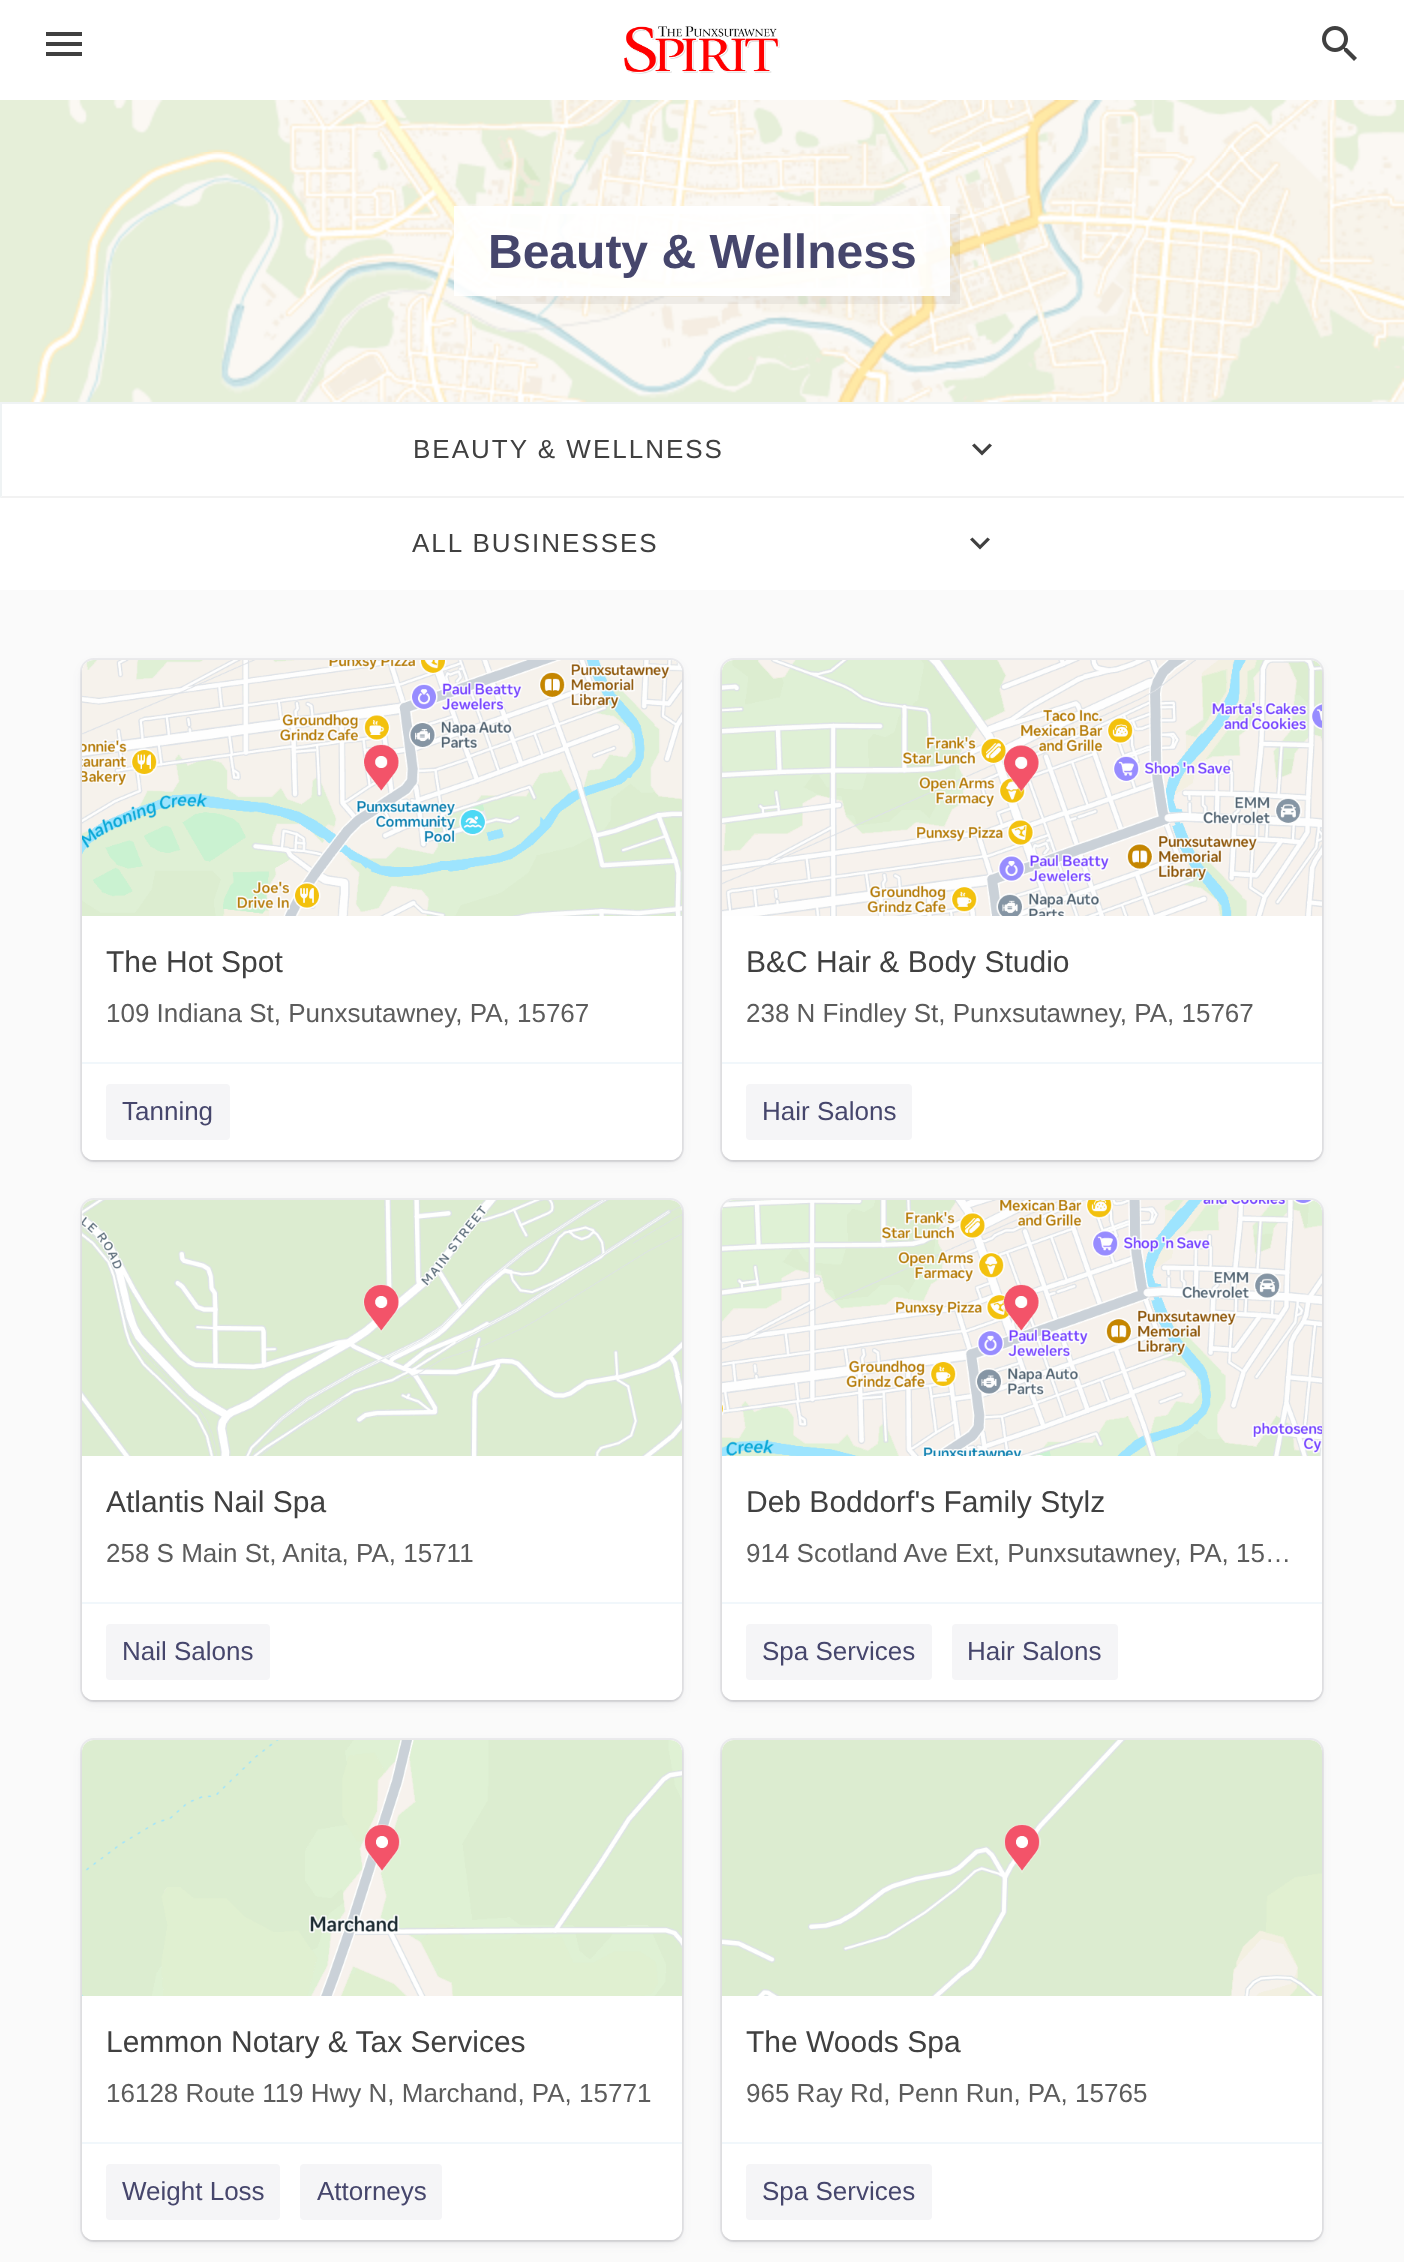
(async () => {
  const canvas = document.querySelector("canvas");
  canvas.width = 1404;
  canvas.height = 2262;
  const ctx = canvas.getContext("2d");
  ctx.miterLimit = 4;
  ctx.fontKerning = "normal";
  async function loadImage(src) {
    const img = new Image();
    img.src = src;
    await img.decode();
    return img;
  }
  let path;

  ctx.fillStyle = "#fafafa";
  ctx.fillRect(0, 0, 1404, 2262);
  ctx.fillStyle = "#ffffff";
  ctx.fillRect(0, 0, 1404, 100);
  ctx.fillStyle = "#404040";
  path = new Path2D("M46 32H82V36H46ZM46 42H82V46H46ZM46 52H82V56H46Z");
  ctx.fill(path);
  ctx.drawImage(await loadImage("img/1.png"), 624, 26, 156, 48);
  ctx.drawImage(await loadImage("img/2.png"), 1322, 26, 35, 35);
  ctx.drawImage(await loadImage("img/3.png"), 0, 100, 472, 52);
  ctx.drawImage(await loadImage("img/4.png"), 472, 100, 512, 52);
  ctx.drawImage(await loadImage("img/5.png"), 984, 100, 420, 52);
  ctx.drawImage(await loadImage("img/6.png"), 0, 152, 472, 250);
  ctx.drawImage(await loadImage("img/7.png"), 472, 152, 512, 250);
  ctx.drawImage(await loadImage("img/8.png"), 984, 152, 420, 250);
  ctx.fillStyle = "rgba(0, 0, 0, 0.05)";
  path = new Path2D("M496 288V304H960V214H926V288Z");
  ctx.fill(path);
  ctx.fillStyle = "rgba(255, 255, 255, 0.9)";
  path = new Path2D("M486 206V214H926V288H486V296H950V206Z");
  ctx.fill(path);
  path = new Path2D("M454 206V296H918V288H478V214H918V206Z");
  ctx.fill(path);
  for (const [x, y, w, h, color] of [
    [478, 214, 448, 74, "rgba(255, 255, 255, 0.9)"],
    [0, 404, 1404, 186, "#ffffff"],
    [0, 402, 1404, 2, "#eff3f4"],
  ]) {
    ctx.fillStyle = color;
    ctx.fillRect(x, y, w, h);
  }
  ctx.fillStyle = "#f2f2f2";
  path = new Path2D("M1404 498H0L2 496H1404Z");
  ctx.fill(path);
  ctx.fillStyle = "#eff3f4";
  path = new Path2D("M0 498V404H2V496Z");
  ctx.fill(path);
  ctx.fillStyle = "#404040";
  path = new Path2D("M974.5 443.5L982 451L989.5 443.5L992 445.5L982 455.5L972 445.5Z");
  ctx.fill(path);
  path = new Path2D("M972.5 537.5L980 545L987.5 537.5L990 539.5L980 549.5L970 539.5Z");
  ctx.fill(path);
  ctx.fillStyle = "rgba(60, 66, 87, 0.08)";
  ctx.filter = "blur(5px)";
  ctx.beginPath();
  ctx.roundRect(82, 664, 600, 500, 12);
  ctx.fill();
  ctx.filter = "none";
  ctx.beginPath();
  ctx.roundRect(81, 659, 602, 502, 13);
  ctx.strokeStyle = "rgba(60, 66, 87, 0.08)";
  ctx.lineWidth = 2;
  ctx.stroke();
  ctx.fillStyle = "rgba(0, 0, 0, 0.08)";
  ctx.filter = "blur(1px)";
  ctx.beginPath();
  ctx.roundRect(82, 662, 600, 500, 12);
  ctx.fill();
  ctx.filter = "none";
  ctx.fillStyle = "#ffffff";
  ctx.beginPath();
  ctx.roundRect(82, 660, 600, 500, 12);
  ctx.fill();
  ctx.drawImage(await loadImage("img/9.png"), 82, 660, 600, 256);
  ctx.beginPath();
  ctx.roundRect(82, 1062, 600, 98, [0, 0, 12, 12]);
  ctx.fill();
  ctx.fillStyle = "#f1f7fb";
  ctx.fillRect(82, 1062, 600, 2);
  ctx.fillStyle = "#f5f5f7";
  ctx.beginPath();
  ctx.roundRect(106, 1084, 124, 56, 4);
  ctx.fill();
  ctx.fillStyle = "rgba(60, 66, 87, 0.08)";
  ctx.filter = "blur(5px)";
  ctx.beginPath();
  ctx.roundRect(722, 664, 600, 500, 12);
  ctx.fill();
  ctx.filter = "none";
  ctx.beginPath();
  ctx.roundRect(721, 659, 602, 502, 13);
  ctx.stroke();
  ctx.fillStyle = "rgba(0, 0, 0, 0.08)";
  ctx.filter = "blur(1px)";
  ctx.beginPath();
  ctx.roundRect(722, 662, 600, 500, 12);
  ctx.fill();
  ctx.filter = "none";
  ctx.fillStyle = "#ffffff";
  ctx.beginPath();
  ctx.roundRect(722, 660, 600, 500, 12);
  ctx.fill();
  ctx.drawImage(await loadImage("img/10.png"), 722, 660, 600, 256);
  ctx.beginPath();
  ctx.roundRect(722, 1062, 600, 98, [0, 0, 12, 12]);
  ctx.fill();
  ctx.fillStyle = "#f1f7fb";
  ctx.fillRect(722, 1062, 600, 2);
  ctx.fillStyle = "#f5f5f7";
  ctx.beginPath();
  ctx.roundRect(746, 1084, 166, 56, 4);
  ctx.fill();
  ctx.fillStyle = "rgba(60, 66, 87, 0.08)";
  ctx.filter = "blur(5px)";
  ctx.beginPath();
  ctx.roundRect(82, 1204, 600, 500, 12);
  ctx.fill();
  ctx.filter = "none";
  ctx.beginPath();
  ctx.roundRect(81, 1199, 602, 502, 13);
  ctx.stroke();
  ctx.fillStyle = "rgba(0, 0, 0, 0.08)";
  ctx.filter = "blur(1px)";
  ctx.beginPath();
  ctx.roundRect(82, 1202, 600, 500, 12);
  ctx.fill();
  ctx.filter = "none";
  ctx.fillStyle = "#ffffff";
  ctx.beginPath();
  ctx.roundRect(82, 1200, 600, 500, 12);
  ctx.fill();
  ctx.drawImage(await loadImage("img/11.png"), 82, 1200, 600, 256);
  ctx.beginPath();
  ctx.roundRect(82, 1602, 600, 98, [0, 0, 12, 12]);
  ctx.fill();
  ctx.fillStyle = "#f1f7fb";
  ctx.fillRect(82, 1602, 600, 2);
  ctx.fillStyle = "#f5f5f7";
  ctx.beginPath();
  ctx.roundRect(106, 1624, 164, 56, 4);
  ctx.fill();
  ctx.fillStyle = "rgba(60, 66, 87, 0.08)";
  ctx.filter = "blur(5px)";
  ctx.beginPath();
  ctx.roundRect(722, 1204, 600, 500, 12);
  ctx.fill();
  ctx.filter = "none";
  ctx.beginPath();
  ctx.roundRect(721, 1199, 602, 502, 13);
  ctx.stroke();
  ctx.fillStyle = "rgba(0, 0, 0, 0.08)";
  ctx.filter = "blur(1px)";
  ctx.beginPath();
  ctx.roundRect(722, 1202, 600, 500, 12);
  ctx.fill();
  ctx.filter = "none";
  ctx.fillStyle = "#ffffff";
  ctx.beginPath();
  ctx.roundRect(722, 1200, 600, 500, 12);
  ctx.fill();
  ctx.drawImage(await loadImage("img/12.png"), 722, 1200, 600, 256);
  ctx.beginPath();
  ctx.roundRect(722, 1602, 600, 98, [0, 0, 12, 12]);
  ctx.fill();
  ctx.fillStyle = "#f1f7fb";
  ctx.fillRect(722, 1602, 600, 2);
  ctx.fillStyle = "#f5f5f7";
  ctx.beginPath();
  ctx.roundRect(746, 1624, 186, 56, 4);
  ctx.fill();
  ctx.beginPath();
  ctx.roundRect(952, 1624, 166, 56, 4);
  ctx.fill();
  ctx.fillStyle = "rgba(60, 66, 87, 0.08)";
  ctx.filter = "blur(5px)";
  ctx.beginPath();
  ctx.roundRect(82, 1744, 600, 500, 12);
  ctx.fill();
  ctx.filter = "none";
  ctx.beginPath();
  ctx.roundRect(81, 1739, 602, 502, 13);
  ctx.stroke();
  ctx.fillStyle = "rgba(0, 0, 0, 0.08)";
  ctx.filter = "blur(1px)";
  ctx.beginPath();
  ctx.roundRect(82, 1742, 600, 500, 12);
  ctx.fill();
  ctx.filter = "none";
  ctx.fillStyle = "#ffffff";
  ctx.beginPath();
  ctx.roundRect(82, 1740, 600, 500, 12);
  ctx.fill();
  ctx.drawImage(await loadImage("img/13.png"), 82, 1740, 600, 256);
  ctx.beginPath();
  ctx.roundRect(82, 2142, 600, 98, [0, 0, 12, 12]);
  ctx.fill();
  ctx.fillStyle = "#f1f7fb";
  ctx.fillRect(82, 2142, 600, 2);
  ctx.fillStyle = "#f5f5f7";
  ctx.beginPath();
  ctx.roundRect(106, 2164, 174, 56, 4);
  ctx.fill();
  ctx.beginPath();
  ctx.roundRect(300, 2164, 142, 56, 4);
  ctx.fill();
  ctx.fillStyle = "rgba(60, 66, 87, 0.08)";
  ctx.filter = "blur(5px)";
  ctx.beginPath();
  ctx.roundRect(722, 1744, 600, 500, 12);
  ctx.fill();
  ctx.filter = "none";
  ctx.beginPath();
  ctx.roundRect(721, 1739, 602, 502, 13);
  ctx.stroke();
  ctx.fillStyle = "rgba(0, 0, 0, 0.08)";
  ctx.filter = "blur(1px)";
  ctx.beginPath();
  ctx.roundRect(722, 1742, 600, 500, 12);
  ctx.fill();
  ctx.filter = "none";
  ctx.fillStyle = "#ffffff";
  ctx.beginPath();
  ctx.roundRect(722, 1740, 600, 500, 12);
  ctx.fill();
  ctx.drawImage(await loadImage("img/14.png"), 722, 1740, 600, 256);
  ctx.beginPath();
  ctx.roundRect(722, 2142, 600, 98, [0, 0, 12, 12]);
  ctx.fill();
  ctx.fillStyle = "#f1f7fb";
  ctx.fillRect(722, 2142, 600, 2);
  ctx.fillStyle = "#f5f5f7";
  ctx.beginPath();
  ctx.roundRect(746, 2164, 186, 56, 4);
  ctx.fill();
  ctx.font = "bold 48px Liberation Sans";
  ctx.fillStyle = "#46466c";
  ctx.fillText("Beauty & Wellness", 488, 268);
  ctx.letterSpacing = "2px";
  ctx.font = "26px Liberation Sans";
  ctx.fillStyle = "#404040";
  ctx.fillText("BEAUTY & WELLNESS", 413, 458);
  ctx.fillText("ALL BUSINESSES", 412, 552);
  ctx.letterSpacing = "0px";
  ctx.font = "30px Liberation Sans";
  ctx.fillText("The Hot Spot", 106, 972);
  ctx.font = "26px Liberation Sans";
  ctx.fillStyle = "#5c5c5c";
  ctx.fillText("109 Indiana St, Punxsutawney, PA, 15767", 106, 1022);
  ctx.fillStyle = "#46466c";
  ctx.fillText("Tanning", 122, 1120);
  ctx.font = "30px Liberation Sans";
  ctx.fillStyle = "#404040";
  ctx.fillText("B&C Hair & Body Studio", 746, 972);
  ctx.font = "26px Liberation Sans";
  ctx.fillStyle = "#5c5c5c";
  ctx.fillText("238 N Findley St, Punxsutawney, PA, 15767", 746, 1022);
  ctx.fillStyle = "#46466c";
  ctx.fillText("Hair Salons", 762, 1120);
  ctx.font = "30px Liberation Sans";
  ctx.fillStyle = "#404040";
  ctx.fillText("Atlantis Nail Spa", 106, 1512);
  ctx.font = "26px Liberation Sans";
  ctx.fillStyle = "#5c5c5c";
  ctx.fillText("258 S Main St, Anita, PA, 15711", 106, 1562);
  ctx.fillStyle = "#46466c";
  ctx.fillText("Nail Salons", 122, 1660);
  ctx.font = "30px Liberation Sans";
  ctx.fillStyle = "#404040";
  ctx.fillText("Deb Boddorf's Family Stylz", 746, 1512);
  ctx.font = "26px Liberation Sans";
  ctx.fillStyle = "#5c5c5c";
  ctx.fillText("914 Scotland Ave Ext, Punxsutawney, PA, 15…", 746, 1562);
  ctx.fillStyle = "#46466c";
  ctx.fillText("Spa Services", 762, 1660);
  ctx.fillText("Hair Salons", 967, 1660);
  ctx.font = "30px Liberation Sans";
  ctx.fillStyle = "#404040";
  ctx.fillText("Lemmon Notary & Tax Services", 106, 2052);
  ctx.font = "26px Liberation Sans";
  ctx.fillStyle = "#5c5c5c";
  ctx.fillText("16128 Route 119 Hwy N, Marchand, PA, 15771", 106, 2102);
  ctx.fillStyle = "#46466c";
  ctx.fillText("Weight Loss", 122, 2200);
  ctx.fillText("Attorneys", 317, 2200);
  ctx.font = "30px Liberation Sans";
  ctx.fillStyle = "#404040";
  ctx.fillText("The Woods Spa", 746, 2052);
  ctx.font = "26px Liberation Sans";
  ctx.fillStyle = "#5c5c5c";
  ctx.fillText("965 Ray Rd, Penn Run, PA, 15765", 746, 2102);
  ctx.fillStyle = "#46466c";
  ctx.fillText("Spa Services", 762, 2200);
})();
